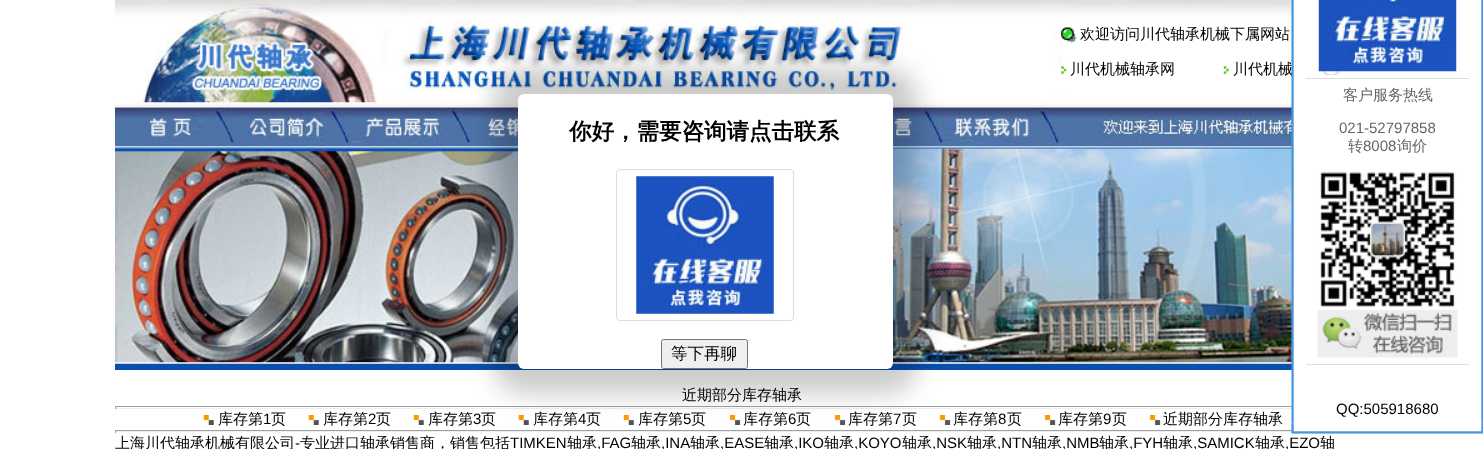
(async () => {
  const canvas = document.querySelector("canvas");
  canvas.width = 1483;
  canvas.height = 449;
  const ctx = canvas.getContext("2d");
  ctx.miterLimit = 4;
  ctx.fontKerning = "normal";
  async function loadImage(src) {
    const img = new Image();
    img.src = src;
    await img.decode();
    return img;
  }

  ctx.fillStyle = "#ffffff";
  ctx.fillRect(0, 0, 1483, 449);
  ctx.drawImage(await loadImage("img/1.png"), 115, 0, 1177, 103);
  ctx.drawImage(await loadImage("img/2.png"), 1061, 27, 16, 16);
  ctx.drawImage(await loadImage("img/3.png"), 1061, 66, 6, 8);
  ctx.drawImage(await loadImage("img/4.png"), 1223, 66, 6, 8);
  ctx.drawImage(await loadImage("img/5.png"), 115, 102, 1177, 47);
  ctx.drawImage(await loadImage("img/12.png"), 115, 148, 1177, 215);
  ctx.drawImage(await loadImage("img/13.png"), 115, 362, 1177, 8);
  ctx.fillStyle = "#9f9f9f";
  ctx.fillRect(115, 406, 1177, 1);
  ctx.fillStyle = "#eeeeee";
  ctx.fillRect(115, 408, 1177, 1);
  ctx.drawImage(await loadImage("img/14.png"), 518, 415, 11, 10);
  ctx.drawImage(await loadImage("img/14.png"), 623, 415, 11, 10);
  ctx.drawImage(await loadImage("img/15.png"), 729, 415, 12, 10);
  ctx.drawImage(await loadImage("img/15.png"), 834, 415, 12, 10);
  ctx.drawImage(await loadImage("img/15.png"), 939, 415, 12, 10);
  ctx.fillStyle = "#9f9f9f";
  ctx.fillRect(115, 430, 1177, 1);
  ctx.fillStyle = "#eeeeee";
  ctx.fillRect(115, 431, 1177, 1);
  ctx.fillStyle = "rgba(0, 0, 0, 0.2)";
  ctx.filter = "blur(12.5px)";
  ctx.beginPath();
  ctx.roundRect(493, 69, 425, 325, 31);
  ctx.fill();
  ctx.filter = "none";
  ctx.fillStyle = "#ffffff";
  ctx.beginPath();
  ctx.roundRect(518, 94, 375, 275, 6);
  ctx.fill();
  ctx.beginPath();
  ctx.roundRect(616.5, 169.5, 177, 151, 3.5);
  ctx.strokeStyle = "#dddddd";
  ctx.stroke();
  ctx.drawImage(await loadImage("img/11.png"), 636, 176, 138, 138);
  ctx.fillStyle = "#efefef";
  ctx.beginPath();
  ctx.roundRect(661.5, 339.5, 86, 29, 2);
  ctx.fill();
  ctx.strokeStyle = "#767676";
  ctx.stroke();
  ctx.fillStyle = "#9f9f9f";
  ctx.fillRect(115, 406, 1, 3);
  ctx.drawImage(await loadImage("img/14.png"), 203, 415, 11, 10);
  ctx.drawImage(await loadImage("img/14.png"), 308, 415, 11, 10);
  ctx.drawImage(await loadImage("img/14.png"), 413, 415, 11, 10);
  ctx.drawImage(await loadImage("img/15.png"), 1044, 415, 12, 10);
  ctx.drawImage(await loadImage("img/15.png"), 1149, 415, 12, 10);
  ctx.fillRect(115, 430, 1, 3);
  ctx.font = "500 15px WenQuanYi Zen Hei";
  ctx.fillStyle = "#000000";
  for (const [text, x, y] of [
    ["欢迎访问川代轴承机械下属网站", 1080, 39],
    ["川代机械轴承网", 1070, 74],
    ["川代机械", 1233, 74],
  ]) {
    ctx.fillText(text, x, y);
  }
  ctx.drawImage(await loadImage("img/6.png"), 1291, 0, 192, 424);
  ctx.drawImage(await loadImage("img/8.png"), 1322, 71, 19, 4);
  ctx.drawImage(await loadImage("img/7.png"), 1318, 0, 139, 72);
  ctx.fillStyle = "#dddddd";
  ctx.fillRect(1306, 78, 163, 1);
  ctx.fillRect(1306, 364, 163, 1);
  ctx.fillStyle = "#666666";
  ctx.fillText("客户服务热线", 1343, 100);
  ctx.font = "15px Liberation Sans";
  ctx.fillText("021-52797858", 1339, 133);
  ctx.font = "500 15px WenQuanYi Zen Hei";
  ctx.fillText("转", 1348, 151);
  ctx.font = "15px Liberation Sans";
  ctx.fillText("8008", 1363, 151);
  ctx.font = "500 15px WenQuanYi Zen Hei";
  ctx.fillText("询价", 1397, 151);
  ctx.drawImage(await loadImage("img/9.png"), 1317, 172, 141, 186);
  ctx.font = "15px Liberation Sans";
  ctx.fillStyle = "#000000";
  ctx.fillText("QQ:505918680", 1336, 414);
  ctx.drawImage(await loadImage("img/10.png"), 1291, 423, 192, 11);
  ctx.font = "bold 22.5px WenQuanYi Zen Hei";
  ctx.fillText("你好，需要咨询请点击联系", 569, 139);
  ctx.font = "500 16.5px WenQuanYi Zen Hei";
  ctx.fillText("等下再聊", 671, 359);
  ctx.font = "500 15px WenQuanYi Zen Hei";
  ctx.fillText("近期部分库存轴承", 682, 400);
  ctx.fillText("库存第", 218, 424);
  ctx.font = "15px Liberation Sans";
  ctx.fillText("1", 263, 424);
  ctx.font = "500 15px WenQuanYi Zen Hei";
  ctx.fillText("页", 271, 424);
  ctx.fillText("库存第", 323, 424);
  ctx.font = "15px Liberation Sans";
  ctx.fillText("2", 368, 424);
  ctx.font = "500 15px WenQuanYi Zen Hei";
  ctx.fillText("页", 376, 424);
  ctx.fillText("库存第", 428, 424);
  ctx.font = "15px Liberation Sans";
  ctx.fillText("3", 473, 424);
  ctx.font = "500 15px WenQuanYi Zen Hei";
  ctx.fillText("页", 481, 424);
  ctx.fillText("库存第", 533, 424);
  ctx.font = "15px Liberation Sans";
  ctx.fillText("4", 578, 424);
  ctx.font = "500 15px WenQuanYi Zen Hei";
  ctx.fillText("页", 586, 424);
  ctx.fillText("库存第", 638, 424);
  ctx.font = "15px Liberation Sans";
  ctx.fillText("5", 683, 424);
  ctx.font = "500 15px WenQuanYi Zen Hei";
  ctx.fillText("页", 691, 424);
  ctx.fillText("库存第", 743, 424);
  ctx.font = "15px Liberation Sans";
  ctx.fillText("6", 788, 424);
  ctx.font = "500 15px WenQuanYi Zen Hei";
  ctx.fillText("页", 796, 424);
  ctx.fillText("库存第", 848, 424);
  ctx.font = "15px Liberation Sans";
  ctx.fillText("7", 893, 424);
  ctx.font = "500 15px WenQuanYi Zen Hei";
  ctx.fillText("页", 902, 424);
  ctx.fillText("库存第", 953, 424);
  ctx.font = "15px Liberation Sans";
  ctx.fillText("8", 998, 424);
  ctx.font = "500 15px WenQuanYi Zen Hei";
  ctx.fillText("页", 1007, 424);
  ctx.fillText("库存第", 1058, 424);
  ctx.font = "15px Liberation Sans";
  ctx.fillText("9", 1103, 424);
  ctx.font = "500 15px WenQuanYi Zen Hei";
  for (const [text, x, y] of [
    ["页", 1112, 424],
    ["近期部分库存轴承", 1163, 424],
    ["上海川代轴承机械有限公司", 115, 448],
  ]) {
    ctx.fillText(text, x, y);
  }
  ctx.font = "15px Liberation Sans";
  ctx.fillText("-", 295, 448);
  ctx.font = "500 15px WenQuanYi Zen Hei";
  ctx.fillText("专业进口轴承销售商，销售包括", 300, 448);
  ctx.font = "15px Liberation Sans";
  ctx.fillText("TIMKEN", 510, 448);
  ctx.font = "500 15px WenQuanYi Zen Hei";
  ctx.fillText("轴承", 567, 448);
  ctx.font = "15px Liberation Sans";
  ctx.fillText(",FAG", 597, 448);
  ctx.font = "500 15px WenQuanYi Zen Hei";
  ctx.fillText("轴承", 631, 448);
  ctx.font = "15px Liberation Sans";
  ctx.fillText(",INA", 661, 448);
  ctx.font = "500 15px WenQuanYi Zen Hei";
  ctx.fillText("轴承", 690, 448);
  ctx.font = "15px Liberation Sans";
  ctx.fillText(",EASE", 720, 448);
  ctx.font = "500 15px WenQuanYi Zen Hei";
  ctx.fillText("轴承", 764, 448);
  ctx.font = "15px Liberation Sans";
  ctx.fillText(",IKO", 794, 448);
  ctx.font = "500 15px WenQuanYi Zen Hei";
  ctx.fillText("轴承", 824, 448);
  ctx.font = "15px Liberation Sans";
  ctx.fillText(",KOYO", 854, 448);
  ctx.font = "500 15px WenQuanYi Zen Hei";
  ctx.fillText("轴承", 902, 448);
  ctx.font = "15px Liberation Sans";
  ctx.fillText(",NSK", 932, 448);
  ctx.font = "500 15px WenQuanYi Zen Hei";
  ctx.fillText("轴承", 967, 448);
  ctx.font = "15px Liberation Sans";
  ctx.fillText(",NTN", 997, 448);
  ctx.font = "500 15px WenQuanYi Zen Hei";
  ctx.fillText("轴承", 1032, 448);
  ctx.font = "15px Liberation Sans";
  ctx.fillText(",NMB", 1062, 448);
  ctx.font = "500 15px WenQuanYi Zen Hei";
  ctx.fillText("轴承", 1099, 448);
  ctx.font = "15px Liberation Sans";
  ctx.fillText(",FYH", 1129, 448);
  ctx.font = "500 15px WenQuanYi Zen Hei";
  ctx.fillText("轴承", 1163, 448);
  ctx.font = "15px Liberation Sans";
  ctx.fillText(",SAMICK", 1193, 448);
  ctx.font = "500 15px WenQuanYi Zen Hei";
  ctx.fillText("轴承", 1255, 448);
  ctx.font = "15px Liberation Sans";
  ctx.fillText(",EZO", 1285, 448);
  ctx.font = "500 15px WenQuanYi Zen Hei";
  ctx.fillText("轴", 1320, 448);
})();
